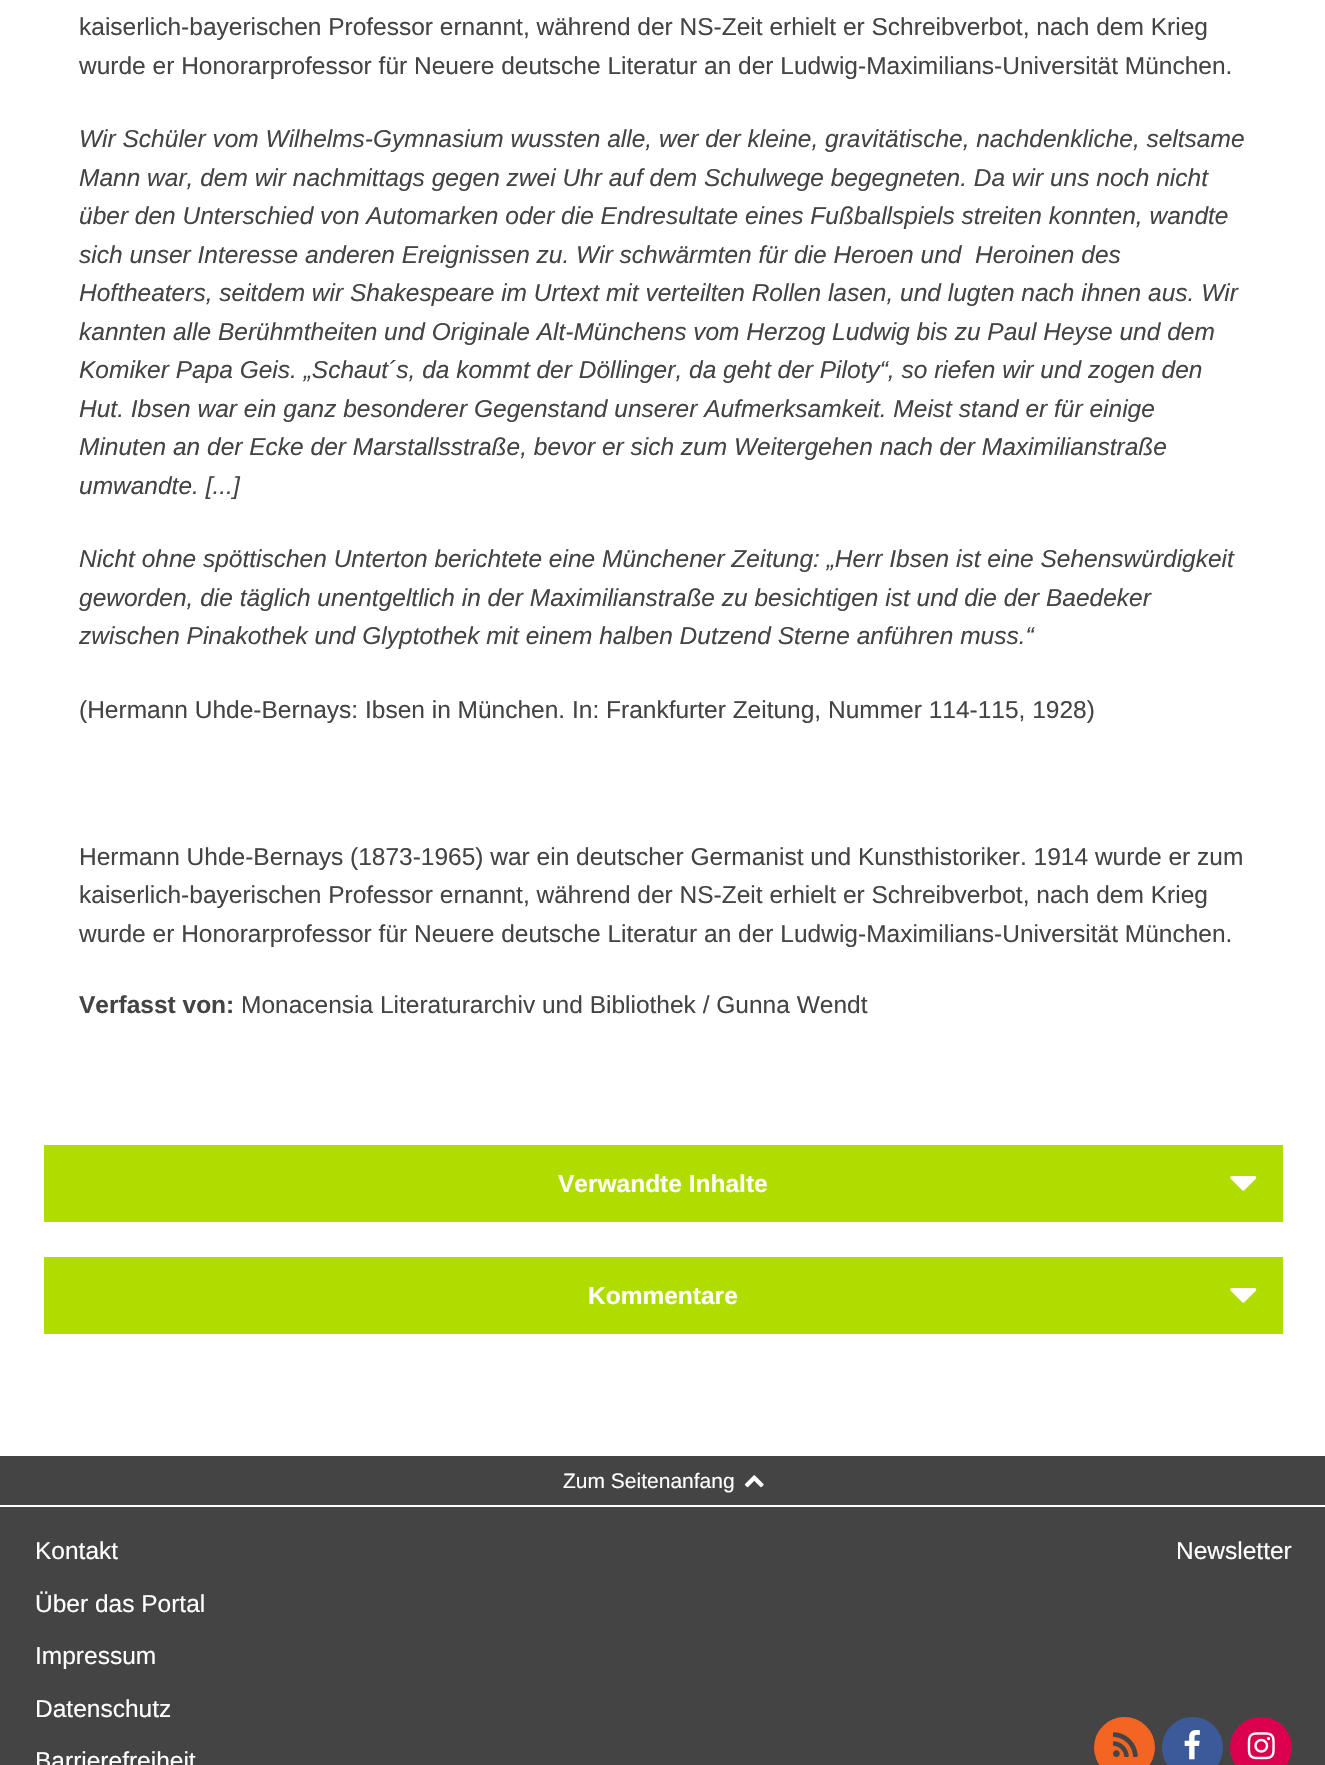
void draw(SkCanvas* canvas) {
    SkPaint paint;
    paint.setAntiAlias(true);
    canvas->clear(0xFFFFFFFF);
    SkFont font1(fontMgr->matchFamilyStyle("Liberation Sans", SkFontStyle::Normal()), 24.5f);
    font1.setSubpixel(true);
    paint.setColor(0xFF444444);
    canvas->drawString("kaiserlich-bayerischen Professor ernannt, während der NS-Zeit erhielt er Schreibverbot, nach dem Krieg", 79, 35, font1, paint);
    canvas->drawString("wurde er Honorarprofessor für Neuere deutsche Literatur an der Ludwig-Maximilians-Universität München.", 79, 74, font1, paint);
    SkFont font2(fontMgr->matchFamilyStyle("Liberation Sans", SkFontStyle::Italic()), 24.5f);
    font2.setSubpixel(true);
    canvas->drawString("Wir Schüler vom Wilhelms-Gymnasium wussten alle, wer der kleine, gravitätische, nachdenkliche, seltsame", 79, 147, font2, paint);
    canvas->drawString("Mann war, dem wir nachmittags gegen zwei Uhr auf dem Schulwege begegneten. Da wir uns noch nicht", 79, 186, font2, paint);
    canvas->drawString("über den Unterschied von Automarken oder die Endresultate eines Fußballspiels streiten konnten, wandte", 79, 224, font2, paint);
    canvas->drawString("sich unser Interesse anderen Ereignissen zu. Wir schwärmten für die Heroen und  Heroinen des", 79, 263, font2, paint);
    canvas->drawString("Hoftheaters, seitdem wir Shakespeare im Urtext mit verteilten Rollen lasen, und lugten nach ihnen aus. Wir", 79, 301, font2, paint);
    canvas->drawString("kannten alle Berühmtheiten und Originale Alt-Münchens vom Herzog Ludwig bis zu Paul Heyse und dem", 79, 340, font2, paint);
    canvas->drawString("Komiker Papa Geis. „Schaut´s, da kommt der Döllinger, da geht der Piloty“, so riefen wir und zogen den", 79, 378, font2, paint);
    canvas->drawString("Hut. Ibsen war ein ganz besonderer Gegenstand unserer Aufmerksamkeit. Meist stand er für einige", 79, 417, font2, paint);
    canvas->drawString("Minuten an der Ecke der Marstallsstraße, bevor er sich zum Weitergehen nach der Maximilianstraße", 79, 455, font2, paint);
    canvas->drawString("umwandte. [...]", 79, 494, font2, paint);
    canvas->drawString("Nicht ohne spöttischen Unterton berichtete eine Münchener Zeitung: „Herr Ibsen ist eine Sehenswürdigkeit", 79, 567, font2, paint);
    canvas->drawString("geworden, die täglich unentgeltlich in der Maximilianstraße zu besichtigen ist und die der Baedeker", 79, 606, font2, paint);
    canvas->drawString("zwischen Pinakothek und Glyptothek mit einem halben Dutzend Sterne anführen muss.“", 79, 644, font2, paint);
    canvas->drawString("(Hermann Uhde-Bernays: Ibsen in München. In: Frankfurter Zeitung, Nummer 114-115, 1928)", 79, 718, font1, paint);
    canvas->drawString("Hermann Uhde-Bernays (1873-1965) war ein deutscher Germanist und Kunsthistoriker. 1914 wurde er zum", 79, 865, font1, paint);
    canvas->drawString("kaiserlich-bayerischen Professor ernannt, während der NS-Zeit erhielt er Schreibverbot, nach dem Krieg", 79, 903, font1, paint);
    canvas->drawString("wurde er Honorarprofessor für Neuere deutsche Literatur an der Ludwig-Maximilians-Universität München.", 79, 942, font1, paint);
    SkFont font3(fontMgr->matchFamilyStyle("Liberation Sans", SkFontStyle::Bold()), 24.5f);
    font3.setSubpixel(true);
    canvas->drawString("Verfasst von:", 79, 1013, font3, paint);
    canvas->drawString("Monacensia Literaturarchiv und Bibliothek / Gunna Wendt", 241, 1013, font1, paint);
    paint.setColor(0xFFAFDD00);
    canvas->drawRect(SkRect::MakeXYWH(44, 1145, 1239, 77), paint);
    paint.setColor(0xFFFFFFFF);
    canvas->drawString("Verwandte Inhalte", 558, 1192, font3, paint);
    canvas->drawImageRect(SkImages::DeferredFromEncodedData(SkData::MakeFromFileName("img1.png")), SkRect::MakeXYWH(1230, 1176, 27, 15), SkSamplingOptions());
    paint.setColor(0xFFAFDD00);
    canvas->drawRect(SkRect::MakeXYWH(44, 1257, 1239, 77), paint);
    paint.setColor(0xFFFFFFFF);
    canvas->drawString("Kommentare", 588, 1304, font3, paint);
    canvas->drawImageRect(SkImages::DeferredFromEncodedData(SkData::MakeFromFileName("img1.png")), SkRect::MakeXYWH(1230, 1288, 27, 15), SkSamplingOptions());
    paint.setColor(0xFF444444);
    canvas->drawRect(SkRect::MakeXYWH(0, 1456, 1325, 49), paint);
    SkFont font4(fontMgr->matchFamilyStyle("Liberation Sans", SkFontStyle::Normal()), 21);
    font4.setSubpixel(true);
    paint.setColor(0xFFFFFFFF);
    canvas->drawString("Zum Seitenanfang", 563, 1488, font4, paint);
    canvas->drawImageRect(SkImages::DeferredFromEncodedData(SkData::MakeFromFileName("img2.png")), SkRect::MakeXYWH(744, 1475, 20, 13), SkSamplingOptions());
    paint.setColor(0xFF444444);
    canvas->drawRect(SkRect::MakeXYWH(0, 1507, 1325, 258), paint);
    paint.setColor(0xFFFFFFFF);
    canvas->drawString("Kontakt", 35, 1559, font1, paint);
    canvas->drawString("Über das Portal", 35, 1612, font1, paint);
    canvas->drawString("Impressum", 35, 1664, font1, paint);
    canvas->drawString("Datenschutz", 35, 1717, font1, paint);
    canvas->drawString("Barrierefreiheit", 35, 1769, font1, paint);
    canvas->drawString("Newsletter", 1176, 1559, font1, paint);
    paint.setColor(0xFFF26522);
    canvas->drawCircle(1124.5f, 1747.5f, 30.5f, paint);
    canvas->drawImageRect(SkImages::DeferredFromEncodedData(SkData::MakeFromFileName("img3.png")), SkRect::MakeXYWH(1113, 1732, 25, 25), SkSamplingOptions());
    paint.setColor(0xFF3C5A99);
    canvas->drawCircle(1192.5f, 1747.5f, 30.5f, paint);
    canvas->drawImageRect(SkImages::DeferredFromEncodedData(SkData::MakeFromFileName("img4.png")), SkRect::MakeXYWH(1184, 1730, 16, 30), SkSamplingOptions());
    paint.setColor(0xFFDB004D);
    canvas->drawRoundRect(SkRect::MakeXYWH(1230, 1717, 62, 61), 30.5f, 30.5f, paint);
    canvas->drawImageRect(SkImages::DeferredFromEncodedData(SkData::MakeFromFileName("img5.png")), SkRect::MakeXYWH(1247, 1732, 28, 28), SkSamplingOptions());
}
